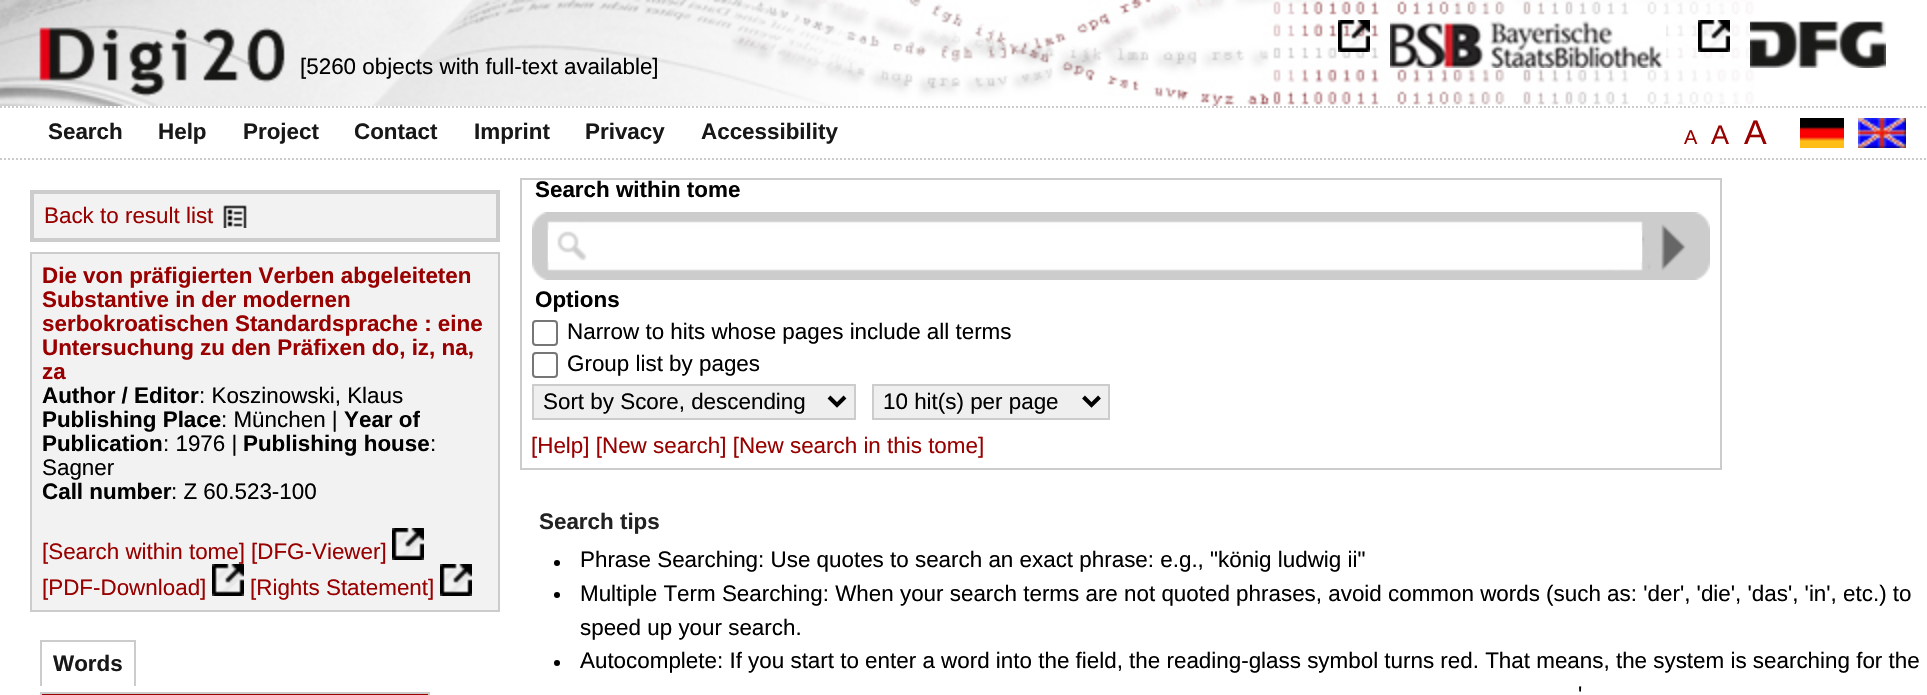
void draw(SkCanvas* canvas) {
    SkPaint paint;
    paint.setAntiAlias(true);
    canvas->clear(0xFFFFFFFF);
    canvas->drawImageRect(SkImages::DeferredFromEncodedData(SkData::MakeFromFileName("img1.png")), SkRect::MakeXYWH(0, 0, 1754, 106), SkSamplingOptions());
    SkFont font1(fontMgr->matchFamilyStyle("Liberation Sans", SkFontStyle::Normal()), 22.4f);
    font1.setSubpixel(true);
    paint.setColor(0xFF000000);
    canvas->drawString("[5260 objects with full-text available]", 300, 74, font1, paint);
    canvas->drawImageRect(SkImages::DeferredFromEncodedData(SkData::MakeFromFileName("img2.png")), SkRect::MakeXYWH(1390, 20, 276, 48), SkSamplingOptions());
    canvas->drawImageRect(SkImages::DeferredFromEncodedData(SkData::MakeFromFileName("img3.png")), SkRect::MakeXYWH(1338, 20, 32, 32), SkSamplingOptions());
    canvas->drawImageRect(SkImages::DeferredFromEncodedData(SkData::MakeFromFileName("img4.png")), SkRect::MakeXYWH(1750, 21, 136, 47), SkSamplingOptions());
    canvas->drawImageRect(SkImages::DeferredFromEncodedData(SkData::MakeFromFileName("img5.png")), SkRect::MakeXYWH(1698, 20, 32, 32), SkSamplingOptions());
    paint.setStyle(SkPaint::kStroke_Style);
    paint.setStrokeWidth(2);
    paint.setColor(0xFFCCCCCC);
    paint.setPathEffect(SkDashPathEffect::Make({{2, 2}}, 0));
    canvas->drawPath(SkPathBuilder().moveTo(0, 107).lineTo(1926, 107).detach(), paint);
    paint.setPathEffect(nullptr);
    paint.setPathEffect(SkDashPathEffect::Make({{2, 2}}, 0));
    canvas->drawPath(SkPathBuilder().moveTo(0, 159).lineTo(1926, 159).detach(), paint);
    paint.setPathEffect(nullptr);
    SkFont font2(fontMgr->matchFamilyStyle("Liberation Sans", SkFontStyle::Bold()), 22.4f);
    font2.setSubpixel(true);
    paint.setStyle(SkPaint::kFill_Style);
    paint.setColor(0xFF181818);
    canvas->drawString("Search", 48, 139, font2, paint);
    canvas->drawString("Help", 158, 139, font2, paint);
    canvas->drawString("Project", 243, 139, font2, paint);
    canvas->drawString("Contact", 354, 139, font2, paint);
    canvas->drawString("Imprint", 474, 139, font2, paint);
    canvas->drawString("Privacy", 585, 139, font2, paint);
    canvas->drawString("Accessibility", 701, 139, font2, paint);
    SkFont font3(fontMgr->matchFamilyStyle("Liberation Sans", SkFontStyle::Normal()), 20);
    font3.setSubpixel(true);
    paint.setColor(0xFF990000);
    canvas->drawString("A", 1684, 144, font3, paint);
    SkFont font4(fontMgr->matchFamilyStyle("Liberation Sans", SkFontStyle::Normal()), 27);
    font4.setSubpixel(true);
    canvas->drawString("A", 1711, 144, font4, paint);
    SkFont font5(fontMgr->matchFamilyStyle("Liberation Sans", SkFontStyle::Normal()), 34);
    font5.setSubpixel(true);
    canvas->drawString("A", 1744, 144, font5, paint);
    canvas->drawImageRect(SkImages::DeferredFromEncodedData(SkData::MakeFromFileName("img6.png")), SkRect::MakeXYWH(1800, 118, 44, 30), SkSamplingOptions());
    canvas->drawImageRect(SkImages::DeferredFromEncodedData(SkData::MakeFromFileName("img7.png")), SkRect::MakeXYWH(1858, 118, 48, 30), SkSamplingOptions());
    paint.setColor(0xFFF2F2F2);
    canvas->drawRect(SkRect::MakeXYWH(32, 192, 466, 48), paint);
    paint.setStyle(SkPaint::kStroke_Style);
    paint.setStrokeWidth(4);
    paint.setColor(0xFFCCCCCC);
    canvas->drawRect(SkRect::MakeXYWH(32, 192, 466, 48), paint);
    paint.setStyle(SkPaint::kFill_Style);
    paint.setColor(0xFF990000);
    canvas->drawString("Back to result list", 44, 223, font1, paint);
    canvas->drawImageRect(SkImages::DeferredFromEncodedData(SkData::MakeFromFileName("img8.png")), SkRect::MakeXYWH(223, 205, 24, 23), SkSamplingOptions());
    paint.setColor(0xFFF2F2F2);
    canvas->drawRect(SkRect::MakeXYWH(31, 253, 468, 358), paint);
    paint.setStyle(SkPaint::kStroke_Style);
    paint.setStrokeWidth(2);
    paint.setColor(0xFFCCCCCC);
    canvas->drawRect(SkRect::MakeXYWH(31, 253, 468, 358), paint);
    paint.setStyle(SkPaint::kFill_Style);
    paint.setColor(0xFF990000);
    canvas->drawString("Die von präfigierten Verben abgeleiteten", 42, 283, font2, paint);
    canvas->drawString("Substantive in der modernen", 42, 307, font2, paint);
    canvas->drawString("serbokroatischen Standardsprache : eine", 42, 331, font2, paint);
    canvas->drawString("Untersuchung zu den Präfixen do, iz, na,", 42, 355, font2, paint);
    canvas->drawString("za", 42, 379, font2, paint);
    paint.setColor(0xFF000000);
    canvas->drawString("Author / Editor", 42, 403, font2, paint);
    canvas->drawString(": Koszinowski, Klaus", 199, 403, font1, paint);
    canvas->drawString("Publishing Place", 42, 427, font2, paint);
    canvas->drawString(": München |", 221, 427, font1, paint);
    canvas->drawString("Year of", 344, 427, font2, paint);
    canvas->drawString("Publication", 42, 451, font2, paint);
    canvas->drawString(": 1976 |", 163, 451, font1, paint);
    canvas->drawString("Publishing house", 243, 451, font2, paint);
    canvas->drawString(":", 430, 451, font1, paint);
    canvas->drawString("Sagner", 42, 475, font1, paint);
    canvas->drawString("Call number", 42, 499, font2, paint);
    canvas->drawString(": Z 60.523-100", 171, 499, font1, paint);
    paint.setColor(0xFF990000);
    canvas->drawString("[Search within tome]", 42, 559, font1, paint);
    canvas->drawString("[DFG-Viewer]", 251, 559, font1, paint);
    canvas->drawImageRect(SkImages::DeferredFromEncodedData(SkData::MakeFromFileName("img9.png")), SkRect::MakeXYWH(392, 528, 32, 32), SkSamplingOptions());
    canvas->drawString("[PDF-Download]", 42, 595, font1, paint);
    canvas->drawImageRect(SkImages::DeferredFromEncodedData(SkData::MakeFromFileName("img9.png")), SkRect::MakeXYWH(212, 564, 32, 32), SkSamplingOptions());
    canvas->drawString("[Rights Statement]", 250, 595, font1, paint);
    canvas->drawImageRect(SkImages::DeferredFromEncodedData(SkData::MakeFromFileName("img9.png")), SkRect::MakeXYWH(440, 564, 32, 32), SkSamplingOptions());
    paint.setColor(0xFF181818);
    canvas->drawString("Words", 53, 671, font2, paint);
    paint.setColor(0xFFCCCCCC);
    canvas->drawRect(SkRect::MakeXYWH(40, 640, 96, 2), paint);
    canvas->drawRect(SkRect::MakeXYWH(134, 640, 2, 46), paint);
    canvas->drawRect(SkRect::MakeXYWH(40, 640, 2, 46), paint);
    canvas->drawRect(SkRect::MakeXYWH(40, 692, 390, 2), paint);
    paint.setColor(0xFF990000);
    canvas->drawRect(SkRect::MakeXYWH(40, 694, 390, 1), paint);
    paint.setColor(0xFFCCCCCC);
    canvas->drawRect(SkRect::MakeXYWH(40, 692, 2, 3), paint);
    canvas->drawRect(SkRect::MakeXYWH(428, 692, 2, 3), paint);
    paint.setStyle(SkPaint::kStroke_Style);
    canvas->drawRect(SkRect::MakeXYWH(521, 179, 1200, 290), paint);
    paint.setStyle(SkPaint::kFill_Style);
    paint.setColor(0xFF000000);
    canvas->drawString("Search within tome", 535, 197, font2, paint);
    canvas->drawImageRect(SkImages::DeferredFromEncodedData(SkData::MakeFromFileName("img10.png")), SkRect::MakeXYWH(532, 212, 1178, 68), SkSamplingOptions());
    paint.setColor(0xFFFFFFFF);
    canvas->drawRect(SkRect::MakeXYWH(548, 230, 1094, 32), paint);
    canvas->drawImageRect(SkImages::DeferredFromEncodedData(SkData::MakeFromFileName("img11.png")), SkRect::MakeXYWH(557, 231, 30, 30), SkSamplingOptions());
    canvas->drawImageRect(SkImages::DeferredFromEncodedData(SkData::MakeFromFileName("img12.png")), SkRect::MakeXYWH(1642, 224, 44, 47), SkSamplingOptions());
    paint.setColor(0xFF000000);
    canvas->drawString("Options", 535, 307, font2, paint);
    paint.setStyle(SkPaint::kStroke_Style);
    paint.setColor(0xFF767676);
    canvas->drawRoundRect(SkRect::MakeXYWH(533, 321, 24, 24), 3, 3, paint);
    paint.setStyle(SkPaint::kFill_Style);
    paint.setColor(0xFF000000);
    canvas->drawString("Narrow to hits whose pages include all terms", 567, 339, font1, paint);
    paint.setStyle(SkPaint::kStroke_Style);
    paint.setColor(0xFF767676);
    canvas->drawRoundRect(SkRect::MakeXYWH(533, 353, 24, 24), 3, 3, paint);
    paint.setStyle(SkPaint::kFill_Style);
    paint.setColor(0xFF000000);
    canvas->drawString("Group list by pages", 567, 371, font1, paint);
    paint.setColor(0xFFEFEFEF);
    canvas->drawRect(SkRect::MakeXYWH(533, 385, 322, 34), paint);
    paint.setStyle(SkPaint::kStroke_Style);
    paint.setColor(0xFFCCCCCC);
    canvas->drawRect(SkRect::MakeXYWH(533, 385, 322, 34), paint);
    paint.setStrokeWidth(4);
    paint.setColor(0xFF000000);
    canvas->drawPath(SkPathBuilder().moveTo(829, 397).lineTo(837, 405).lineTo(845, 397).detach(), paint);
    paint.setStyle(SkPaint::kFill_Style);
    canvas->drawString("Sort by Score, descending", 543, 409, font1, paint);
    paint.setColor(0xFFEFEFEF);
    canvas->drawRect(SkRect::MakeXYWH(873, 385, 236, 34), paint);
    paint.setStyle(SkPaint::kStroke_Style);
    paint.setStrokeWidth(2);
    paint.setColor(0xFFCCCCCC);
    canvas->drawRect(SkRect::MakeXYWH(873, 385, 236, 34), paint);
    paint.setStrokeWidth(4);
    paint.setColor(0xFF000000);
    canvas->drawPath(SkPathBuilder().moveTo(1083.5f, 397).lineTo(1091.5f, 405).lineTo(1099.5f, 397).detach(), paint);
    paint.setStyle(SkPaint::kFill_Style);
    canvas->drawString("10 hit(s) per page", 883, 409, font1, paint);
    paint.setColor(0xFF990000);
    canvas->drawString("[Help] [New search] [New search in this tome]", 531, 453, font1, paint);
    paint.setColor(0xFF222222);
    canvas->drawString("Search tips", 539, 529, font2, paint);
    paint.setColor(0xFF000000);
    canvas->drawCircle(557, 563, 3, paint);
    canvas->drawString("Phrase Searching: Use quotes to search an exact phrase: e.g., \"könig ludwig ii\"", 580, 567, font1, paint);
    canvas->drawCircle(557, 595, 3, paint);
    canvas->drawString("Multiple Term Searching: When your search terms are not quoted phrases, avoid common words (such as: 'der', 'die', 'das', 'in', etc.) to", 580, 601, font1, paint);
    canvas->drawString("speed up your search.", 580, 635, font1, paint);
    canvas->drawCircle(557, 663, 3, paint);
    canvas->drawString("Autocomplete: If you start to enter a word into the field, the reading-glass symbol turns red. That means, the system is searching for the", 580, 668, font1, paint);
    canvas->drawString("'", 1578, 702, font1, paint);
}
